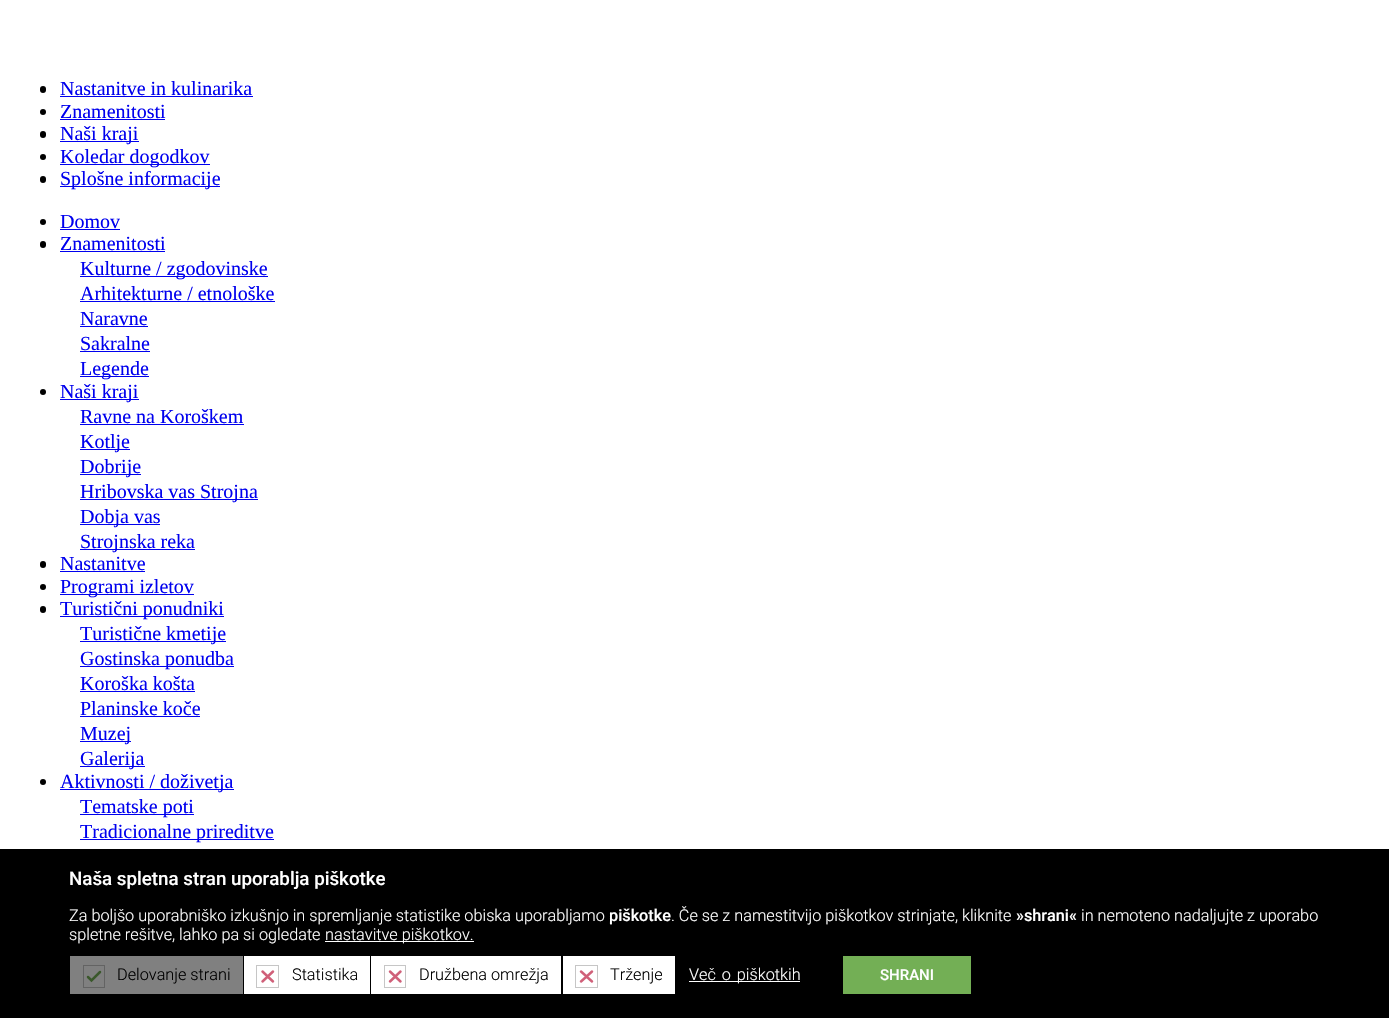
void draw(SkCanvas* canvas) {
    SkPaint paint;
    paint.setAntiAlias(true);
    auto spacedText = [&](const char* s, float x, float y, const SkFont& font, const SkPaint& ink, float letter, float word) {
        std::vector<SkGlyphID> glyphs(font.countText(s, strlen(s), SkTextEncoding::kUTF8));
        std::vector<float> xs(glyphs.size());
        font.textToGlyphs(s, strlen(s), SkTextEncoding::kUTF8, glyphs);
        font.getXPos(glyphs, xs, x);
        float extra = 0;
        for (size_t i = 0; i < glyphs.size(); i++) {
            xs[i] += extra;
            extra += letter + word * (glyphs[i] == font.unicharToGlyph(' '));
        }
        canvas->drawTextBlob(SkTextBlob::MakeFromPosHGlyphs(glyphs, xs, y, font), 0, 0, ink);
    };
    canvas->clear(0xFFFFFFFF);
    paint.setColor(0xFF000000);
    canvas->drawRoundRect(SkRect::MakeXYWH(40, 86, 6, 7), 3, 3, paint);
    SkFont font1(fontMgr->matchFamilyStyle("Liberation Serif", SkFontStyle::Normal()), 20);
    font1.setSubpixel(true);
    paint.setColor(0xFF0000EE);
    canvas->drawString("Nastanitve in kulinarika", 60, 95, font1, paint);
    canvas->drawRect(SkRect::MakeXYWH(60, 96, 193, 1), paint);
    paint.setColor(0xFF000000);
    canvas->drawCircle(43, 112, 3, paint);
    paint.setColor(0xFF0000EE);
    canvas->drawString("Znamenitosti", 60, 118, font1, paint);
    canvas->drawRect(SkRect::MakeXYWH(60, 119, 105, 1), paint);
    paint.setColor(0xFF000000);
    canvas->drawRoundRect(SkRect::MakeXYWH(40, 131, 6, 7), 3, 3, paint);
    paint.setColor(0xFF0000EE);
    canvas->drawRect(SkRect::MakeXYWH(60, 141, 79, 1), paint);
    canvas->drawString("Naši kraji", 60, 140, font1, paint);
    paint.setColor(0xFF000000);
    canvas->drawCircle(43, 157, 3, paint);
    paint.setColor(0xFF0000EE);
    canvas->drawRect(SkRect::MakeXYWH(60, 164, 150, 1), paint);
    canvas->drawString("Koledar dogodkov", 60, 163, font1, paint);
    paint.setColor(0xFF000000);
    canvas->drawRoundRect(SkRect::MakeXYWH(40, 176, 6, 7), 3, 3, paint);
    paint.setColor(0xFF0000EE);
    canvas->drawRect(SkRect::MakeXYWH(60, 186, 160, 1), paint);
    canvas->drawString("Splošne informacije", 60, 185, font1, paint);
    paint.setColor(0xFF000000);
    canvas->drawCircle(43, 222, 3, paint);
    paint.setColor(0xFF0000EE);
    canvas->drawString("Domov", 60, 228, font1, paint);
    canvas->drawRect(SkRect::MakeXYWH(60, 229, 60, 1), paint);
    paint.setColor(0xFF000000);
    canvas->drawRoundRect(SkRect::MakeXYWH(40, 241, 6, 7), 3, 3, paint);
    paint.setColor(0xFF0000EE);
    canvas->drawString("Znamenitosti", 60, 250, font1, paint);
    canvas->drawRect(SkRect::MakeXYWH(60, 251, 105, 1), paint);
    canvas->drawRect(SkRect::MakeXYWH(80, 276, 188, 1), paint);
    canvas->drawString("Kulturne / zgodovinske", 80, 275, font1, paint);
    canvas->drawString("Arhitekturne / etnološke", 80, 300, font1, paint);
    canvas->drawRect(SkRect::MakeXYWH(80, 301, 195, 1), paint);
    canvas->drawString("Naravne", 80, 325, font1, paint);
    canvas->drawRect(SkRect::MakeXYWH(80, 326, 68, 1), paint);
    canvas->drawString("Sakralne", 80, 350, font1, paint);
    canvas->drawRect(SkRect::MakeXYWH(80, 351, 70, 1), paint);
    canvas->drawRect(SkRect::MakeXYWH(80, 376, 69, 1), paint);
    canvas->drawString("Legende", 80, 375, font1, paint);
    paint.setColor(0xFF000000);
    canvas->drawCircle(43, 392, 3, paint);
    paint.setColor(0xFF0000EE);
    canvas->drawRect(SkRect::MakeXYWH(60, 399, 79, 1), paint);
    canvas->drawString("Naši kraji", 60, 398, font1, paint);
    canvas->drawString("Ravne na Koroškem", 80, 423, font1, paint);
    canvas->drawRect(SkRect::MakeXYWH(80, 424, 164, 1), paint);
    canvas->drawRect(SkRect::MakeXYWH(80, 449, 50, 1), paint);
    canvas->drawString("Kotlje", 80, 448, font1, paint);
    canvas->drawRect(SkRect::MakeXYWH(80, 474, 61, 1), paint);
    canvas->drawString("Dobrije", 80, 473, font1, paint);
    canvas->drawRect(SkRect::MakeXYWH(80, 499, 178, 1), paint);
    canvas->drawString("Hribovska vas Strojna", 80, 498, font1, paint);
    canvas->drawRect(SkRect::MakeXYWH(80, 524, 80, 1), paint);
    canvas->drawString("Dobja vas", 80, 523, font1, paint);
    canvas->drawRect(SkRect::MakeXYWH(80, 549, 115, 1), paint);
    canvas->drawString("Strojnska reka", 80, 548, font1, paint);
    paint.setColor(0xFF000000);
    canvas->drawRoundRect(SkRect::MakeXYWH(40, 561, 6, 7), 3, 3, paint);
    paint.setColor(0xFF0000EE);
    canvas->drawString("Nastanitve", 60, 570, font1, paint);
    canvas->drawRect(SkRect::MakeXYWH(60, 571, 85, 1), paint);
    paint.setColor(0xFF000000);
    canvas->drawCircle(43, 587, 3, paint);
    paint.setColor(0xFF0000EE);
    canvas->drawRect(SkRect::MakeXYWH(60, 594, 134, 1), paint);
    canvas->drawString("Programi izletov", 60, 593, font1, paint);
    paint.setColor(0xFF000000);
    canvas->drawRoundRect(SkRect::MakeXYWH(40, 606, 6, 7), 3, 3, paint);
    paint.setColor(0xFF0000EE);
    canvas->drawRect(SkRect::MakeXYWH(60, 616, 164, 1), paint);
    canvas->drawString("Turistični ponudniki", 60, 615, font1, paint);
    canvas->drawRect(SkRect::MakeXYWH(80, 641, 146, 1), paint);
    canvas->drawString("Turistične kmetije", 80, 640, font1, paint);
    canvas->drawRect(SkRect::MakeXYWH(80, 666, 154, 1), paint);
    canvas->drawString("Gostinska ponudba", 80, 665, font1, paint);
    canvas->drawString("Koroška košta", 80, 690, font1, paint);
    canvas->drawRect(SkRect::MakeXYWH(80, 691, 115, 1), paint);
    canvas->drawString("Planinske koče", 80, 715, font1, paint);
    canvas->drawRect(SkRect::MakeXYWH(80, 716, 120, 1), paint);
    canvas->drawRect(SkRect::MakeXYWH(80, 741, 51, 1), paint);
    canvas->drawString("Muzej", 80, 740, font1, paint);
    canvas->drawRect(SkRect::MakeXYWH(80, 766, 65, 1), paint);
    canvas->drawString("Galerija", 80, 765, font1, paint);
    paint.setColor(0xFF000000);
    canvas->drawCircle(43, 782, 3, paint);
    paint.setColor(0xFF0000EE);
    canvas->drawRect(SkRect::MakeXYWH(60, 789, 174, 1), paint);
    canvas->drawString("Aktivnosti / doživetja", 60, 788, font1, paint);
    canvas->drawRect(SkRect::MakeXYWH(80, 814, 114, 1), paint);
    canvas->drawString("Tematske poti", 80, 813, font1, paint);
    canvas->drawRect(SkRect::MakeXYWH(80, 839, 194, 1), paint);
    canvas->drawString("Tradicionalne prireditve", 80, 838, font1, paint);
    paint.setColor(0xFF000000);
    canvas->drawRect(SkRect::MakeXYWH(0, 849, 1389, 169), paint);
    SkFont font2(fontMgr->matchFamilyStyle("Roboto", SkFontStyle(500, SkFontStyle::kNormal_Width, SkFontStyle::kUpright_Slant)), 18.75f);
    font2.setSubpixel(true);
    paint.setColor(0xFFFFFFFF);
    canvas->drawString("Naša spletna stran uporablja piškotke", 69, 885, font2, paint);
    SkFont font3(fontMgr->matchFamilyStyle("Roboto", SkFontStyle(300, SkFontStyle::kNormal_Width, SkFontStyle::kUpright_Slant)), 16.25f);
    font3.setSubpixel(true);
    canvas->drawString("Za boljšo uporabniško izkušnjo in spremljanje statistike obiska uporabljamo", 69, 921, font3, paint);
    SkFont font4(fontMgr->matchFamilyStyle("Roboto", SkFontStyle(500, SkFontStyle::kNormal_Width, SkFontStyle::kUpright_Slant)), 16.25f);
    font4.setSubpixel(true);
    canvas->drawString("piškotke", 609, 921, font4, paint);
    canvas->drawString(". Če se z namestitvijo piškotkov strinjate, kliknite", 671, 921, font3, paint);
    canvas->drawString("»shrani«", 1016, 921, font4, paint);
    canvas->drawString("in nemoteno nadaljujte z uporabo", 1081, 921, font3, paint);
    canvas->drawString("spletne rešitve, lahko pa si ogledate", 69, 940, font3, paint);
    canvas->drawRect(SkRect::MakeXYWH(325, 941, 149, 1), paint);
    canvas->drawString("nastavitve piškotkov.", 325, 940, font3, paint);
    paint.setColor(0xFF808080);
    canvas->drawRect(SkRect::MakeXYWH(70, 956, 173, 38), paint);
    paint.setStyle(SkPaint::kStroke_Style);
    paint.setStrokeWidth(2.5f);
    paint.setStrokeCap(SkPaint::kRound_Cap);
    paint.setColor(0xFF3A582B);
    canvas->drawPath(SkPathBuilder().moveTo(100, 972).lineTo(91.5f, 980.5f).lineTo(88, 977).detach(), paint);
    paint.setStrokeWidth(1);
    paint.setStrokeCap(SkPaint::kButt_Cap);
    paint.setColor(0xFF636363);
    canvas->drawRect(SkRect::MakeXYWH(83.5f, 965.5f, 21, 22), paint);
    paint.setStyle(SkPaint::kFill_Style);
    paint.setColor(0xFF000000);
    canvas->drawString("Delovanje strani", 117, 980, font3, paint);
    paint.setColor(0xFFFFFFFF);
    canvas->drawRect(SkRect::MakeXYWH(244, 956, 126, 38), paint);
    paint.setStyle(SkPaint::kStroke_Style);
    paint.setStrokeWidth(2.5f);
    paint.setStrokeCap(SkPaint::kRound_Cap);
    paint.setColor(0xFFD06079);
    canvas->drawPath(SkPathBuilder().moveTo(262.5f, 971.5f).lineTo(273, 981.5f).moveTo(273, 971.5f).lineTo(262.5f, 981.5f).detach(), paint);
    paint.setStrokeWidth(1);
    paint.setStrokeCap(SkPaint::kButt_Cap);
    paint.setColor(0xFFC6C6C6);
    canvas->drawRect(SkRect::MakeXYWH(256.5f, 965.5f, 22, 22), paint);
    paint.setStyle(SkPaint::kFill_Style);
    paint.setColor(0xFF000000);
    canvas->drawString("Statistika", 292, 980, font3, paint);
    paint.setColor(0xFFFFFFFF);
    canvas->drawRect(SkRect::MakeXYWH(371, 956, 190, 38), paint);
    paint.setStyle(SkPaint::kStroke_Style);
    paint.setStrokeWidth(2.5f);
    paint.setStrokeCap(SkPaint::kRound_Cap);
    paint.setColor(0xFFD06079);
    canvas->drawPath(SkPathBuilder().moveTo(390, 971.5f).lineTo(400.5f, 981.5f).moveTo(400.5f, 971.5f).lineTo(390, 981.5f).detach(), paint);
    paint.setStrokeWidth(1);
    paint.setStrokeCap(SkPaint::kButt_Cap);
    paint.setColor(0xFFC6C6C6);
    canvas->drawRect(SkRect::MakeXYWH(384.5f, 965.5f, 21, 22), paint);
    paint.setStyle(SkPaint::kFill_Style);
    paint.setColor(0xFF000000);
    canvas->drawString("Družbena omrežja", 419, 980, font3, paint);
    paint.setColor(0xFFFFFFFF);
    canvas->drawRect(SkRect::MakeXYWH(563, 956, 112, 38), paint);
    paint.setStyle(SkPaint::kStroke_Style);
    paint.setStrokeWidth(2.5f);
    paint.setStrokeCap(SkPaint::kRound_Cap);
    paint.setColor(0xFFD06079);
    canvas->drawPath(SkPathBuilder().moveTo(581, 971.5f).lineTo(592, 981.5f).moveTo(592, 971.5f).lineTo(581, 981.5f).detach(), paint);
    paint.setStrokeWidth(1);
    paint.setStrokeCap(SkPaint::kButt_Cap);
    paint.setColor(0xFFC6C6C6);
    canvas->drawRect(SkRect::MakeXYWH(575.5f, 965.5f, 22, 22), paint);
    paint.setStyle(SkPaint::kFill_Style);
    paint.setColor(0xFF000000);
    canvas->drawString("Trženje", 610, 980, font3, paint);
    paint.setColor(0xFFFFFFFF);
    canvas->drawRect(SkRect::MakeXYWH(689, 981, 111, 1), paint);
    spacedText("Več o piškotkih", 689, 980, font3, paint, 0, 2);
    paint.setColor(0xFF73AF55);
    canvas->drawRect(SkRect::MakeXYWH(843, 956, 128, 38), paint);
    SkFont font5(fontMgr->matchFamilyStyle("Roboto", SkFontStyle(500, SkFontStyle::kNormal_Width, SkFontStyle::kUpright_Slant)), 15);
    font5.setSubpixel(true);
    paint.setColor(0xFFFFFFFF);
    canvas->drawString("SHRANI", 880, 980, font5, paint);
}
